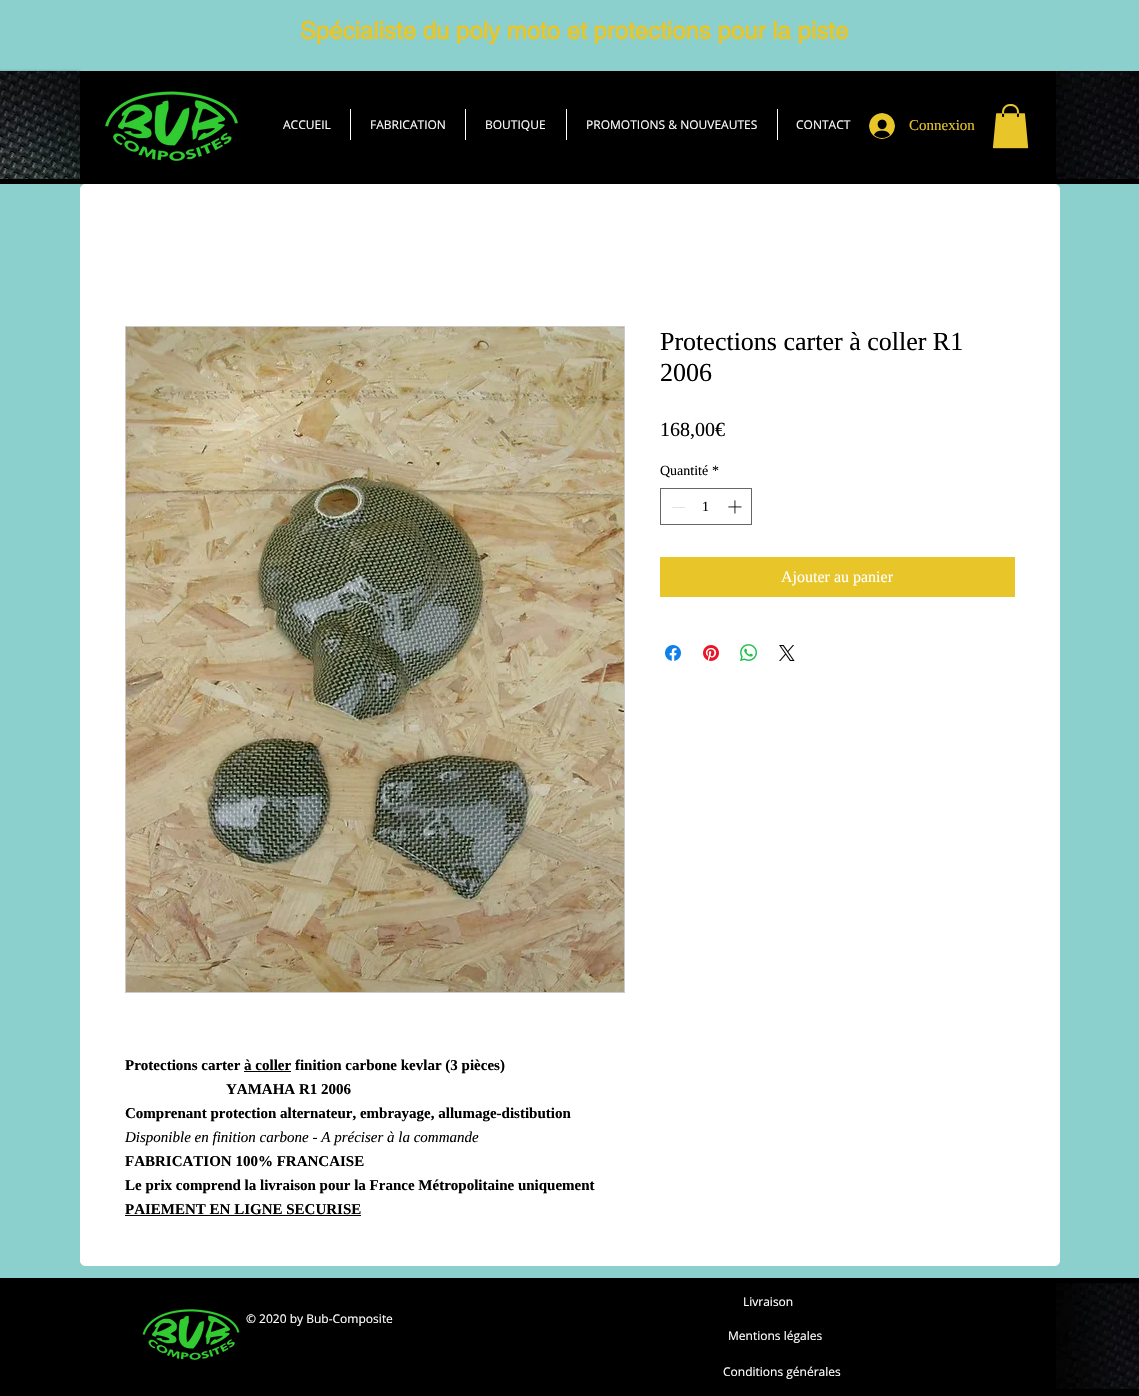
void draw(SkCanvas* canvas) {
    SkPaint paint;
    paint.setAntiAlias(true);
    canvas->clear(0xFF8BD0CD);
    SkFont font1(fontMgr->matchFamilyStyle("helvetica", SkFontStyle::Bold()), 24);
    font1.setSubpixel(true);
    paint.setColor(0xFFE8C529);
    canvas->drawString("Spécialiste du poly moto et protections pour la piste", 300, 39, font1, paint);
    paint.setColor(0xFF000000);
    canvas->drawRect(SkRect::MakeXYWH(0, 71, 1139, 113), paint);
    paint.setColor(0x80000000);
    paint.setMaskFilter(SkMaskFilter::MakeBlur(kNormal_SkBlurStyle, 1.5f));
    canvas->drawRect(SkRect::MakeXYWH(-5, 72, 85, 108), paint);
    paint.setMaskFilter(nullptr);
    canvas->drawImageRect(SkImages::DeferredFromEncodedData(SkData::MakeFromFileName("img1.png")), SkRect::MakeXYWH(0, 71, 80, 108), SkSamplingOptions());
    canvas->drawImageRect(SkImages::DeferredFromEncodedData(SkData::MakeFromFileName("img2.png")), SkRect::MakeXYWH(105, 91, 133, 70), SkSamplingOptions());
    SkFont font2(fontMgr->matchFamilyStyle("Open Sans", SkFontStyle::Normal()), 12);
    font2.setSubpixel(true);
    paint.setColor(0xFFFFFFFF);
    canvas->drawString("ACCUEIL", 283, 129, font2, paint);
    canvas->drawRect(SkRect::MakeXYWH(350, 109, 1, 31), paint);
    canvas->drawString("FABRICATION", 370, 129, font2, paint);
    canvas->drawRect(SkRect::MakeXYWH(465, 109, 1, 31), paint);
    canvas->drawString("BOUTIQUE", 485, 129, font2, paint);
    canvas->drawRect(SkRect::MakeXYWH(566, 109, 1, 31), paint);
    canvas->drawString("PROMOTIONS & NOUVEAUTES", 586, 129, font2, paint);
    canvas->drawRect(SkRect::MakeXYWH(777, 109, 1, 31), paint);
    canvas->drawString("CONTACT", 796, 129, font2, paint);
    canvas->drawImageRect(SkImages::DeferredFromEncodedData(SkData::MakeFromFileName("img3.png")), SkRect::MakeXYWH(869, 113, 26, 26), SkSamplingOptions());
    SkFont font3(fontMgr->matchFamilyStyle("Liberation Serif", SkFontStyle::Normal()), 15);
    font3.setSubpixel(true);
    paint.setColor(0xFFE8C529);
    canvas->drawString("Connexion", 909, 130, font3, paint);
    canvas->drawImageRect(SkImages::DeferredFromEncodedData(SkData::MakeFromFileName("img4.png")), SkRect::MakeXYWH(992, 104, 37, 45), SkSamplingOptions());
    canvas->drawImageRect(SkImages::DeferredFromEncodedData(SkData::MakeFromFileName("img5.png")), SkRect::MakeXYWH(1056, 71, 83, 108), SkSamplingOptions());
    paint.setColor(0xFFFFFFFF);
    canvas->drawRoundRect(SkRect::MakeXYWH(80.5f, 184.5f, 979, 1081), 4.5f, 4.5f, paint);
    paint.setStyle(SkPaint::kStroke_Style);
    paint.setStrokeWidth(1);
    canvas->drawRoundRect(SkRect::MakeXYWH(80.5f, 184.5f, 979, 1081), 4.5f, 4.5f, paint);
    SkFont font4(fontMgr->matchFamilyStyle("Liberation Serif", SkFontStyle::Normal()), 26);
    font4.setSubpixel(true);
    paint.setStyle(SkPaint::kFill_Style);
    paint.setColor(0xFF000000);
    canvas->drawString("Protections carter à coller R1", 660, 350, font4, paint);
    canvas->drawString("2006", 660, 381, font4, paint);
    SkFont font5(fontMgr->matchFamilyStyle("Liberation Serif", SkFontStyle::Normal()), 20);
    font5.setSubpixel(true);
    canvas->drawString("168,00€", 660, 436, font5, paint);
    SkFont font6(fontMgr->matchFamilyStyle("Liberation Serif", SkFontStyle::Normal()), 14);
    font6.setSubpixel(true);
    canvas->drawString("Quantité", 660, 475, font6, paint);
    canvas->drawString("*", 712, 475, font6, paint);
    paint.setStyle(SkPaint::kStroke_Style);
    paint.setColor(0xFF666666);
    canvas->drawRect(SkRect::MakeXYWH(660.5f, 488.5f, 91, 36), paint);
    paint.setStyle(SkPaint::kFill_Style);
    paint.setColor(0xFFE3E3E3);
    canvas->drawRect(SkRect::MakeXYWH(672, 507, 13, 1), paint);
    paint.setColor(0xFF000000);
    canvas->drawString("1", 702, 511, font6, paint);
    canvas->drawImageRect(SkImages::DeferredFromEncodedData(SkData::MakeFromFileName("img6.png")), SkRect::MakeXYWH(728, 500, 14, 14), SkSamplingOptions());
    paint.setColor(0xFFE8C529);
    canvas->drawRect(SkRect::MakeXYWH(660, 557, 355, 40), paint);
    SkFont font7(fontMgr->matchFamilyStyle("Liberation Serif", SkFontStyle::Normal()), 16);
    font7.setSubpixel(true);
    paint.setColor(0xFFFFFFFF);
    canvas->drawString("Ajouter au panier", 781, 582, font7, paint);
    canvas->drawImageRect(SkImages::DeferredFromEncodedData(SkData::MakeFromFileName("img7.png")), SkRect::MakeXYWH(665, 645, 16, 16), SkSamplingOptions());
    canvas->drawImageRect(SkImages::DeferredFromEncodedData(SkData::MakeFromFileName("img8.png")), SkRect::MakeXYWH(703, 645, 16, 16), SkSamplingOptions());
    canvas->drawImageRect(SkImages::DeferredFromEncodedData(SkData::MakeFromFileName("img9.png")), SkRect::MakeXYWH(740, 644, 17, 17), SkSamplingOptions());
    canvas->drawImageRect(SkImages::DeferredFromEncodedData(SkData::MakeFromFileName("img10.png")), SkRect::MakeXYWH(779, 645, 16, 16), SkSamplingOptions());
    paint.setStyle(SkPaint::kStroke_Style);
    paint.setColor(0xFFCACACA);
    canvas->drawRect(SkRect::MakeXYWH(125.5f, 326.5f, 499, 666), paint);
    canvas->drawImageRect(SkImages::DeferredFromEncodedData(SkData::MakeFromFileName("img11.png")), SkRect::MakeXYWH(126, 327, 498, 665), SkSamplingOptions());
    SkFont font8(fontMgr->matchFamilyStyle("Liberation Serif", SkFontStyle::Bold()), 15);
    font8.setSubpixel(true);
    paint.setStyle(SkPaint::kFill_Style);
    paint.setColor(0xFF000000);
    canvas->drawString("Protections carter à coller finition carbone kevlar (3 pièces)", 125, 1070, font8, paint);
    canvas->drawRect(SkRect::MakeXYWH(244, 1071, 47, 1), paint);
    canvas->drawString("YAMAHA R1 2006", 226, 1094, font8, paint);
    canvas->drawString("Comprenant protection alternateur, embrayage, allumage-distibution", 125, 1118, font8, paint);
    SkFont font9(fontMgr->matchFamilyStyle("Liberation Serif", SkFontStyle::Italic()), 15);
    font9.setSubpixel(true);
    canvas->drawString("Disponible en finition carbone - A préciser à la commande", 125, 1142, font9, paint);
    canvas->drawString("FABRICATION 100% FRANCAISE", 125, 1166, font8, paint);
    canvas->drawString("Le prix comprend la livraison pour la France Métropolitaine uniquement", 125, 1190, font8, paint);
    canvas->drawString("PAIEMENT EN LIGNE SECURISE", 125, 1214, font8, paint);
    canvas->drawRect(SkRect::MakeXYWH(125, 1215, 236, 1), paint);
    canvas->drawRect(SkRect::MakeXYWH(0, 1278, 1139, 118), paint);
    paint.setColor(0xFFFFFFFF);
    canvas->drawString("Livraison", 743, 1306, font2, paint);
    canvas->drawImageRect(SkImages::DeferredFromEncodedData(SkData::MakeFromFileName("img12.png")), SkRect::MakeXYWH(1056, 1283, 83, 106), SkSamplingOptions());
    canvas->drawImageRect(SkImages::DeferredFromEncodedData(SkData::MakeFromFileName("img13.png")), SkRect::MakeXYWH(142, 1309, 98, 51), SkSamplingOptions());
    canvas->drawString("© 2020 by Bub-Composite", 246, 1323, font2, paint);
    canvas->drawString("Mentions légales", 728, 1340, font2, paint);
    canvas->drawString("Conditions générales", 723, 1376, font2, paint);
}
